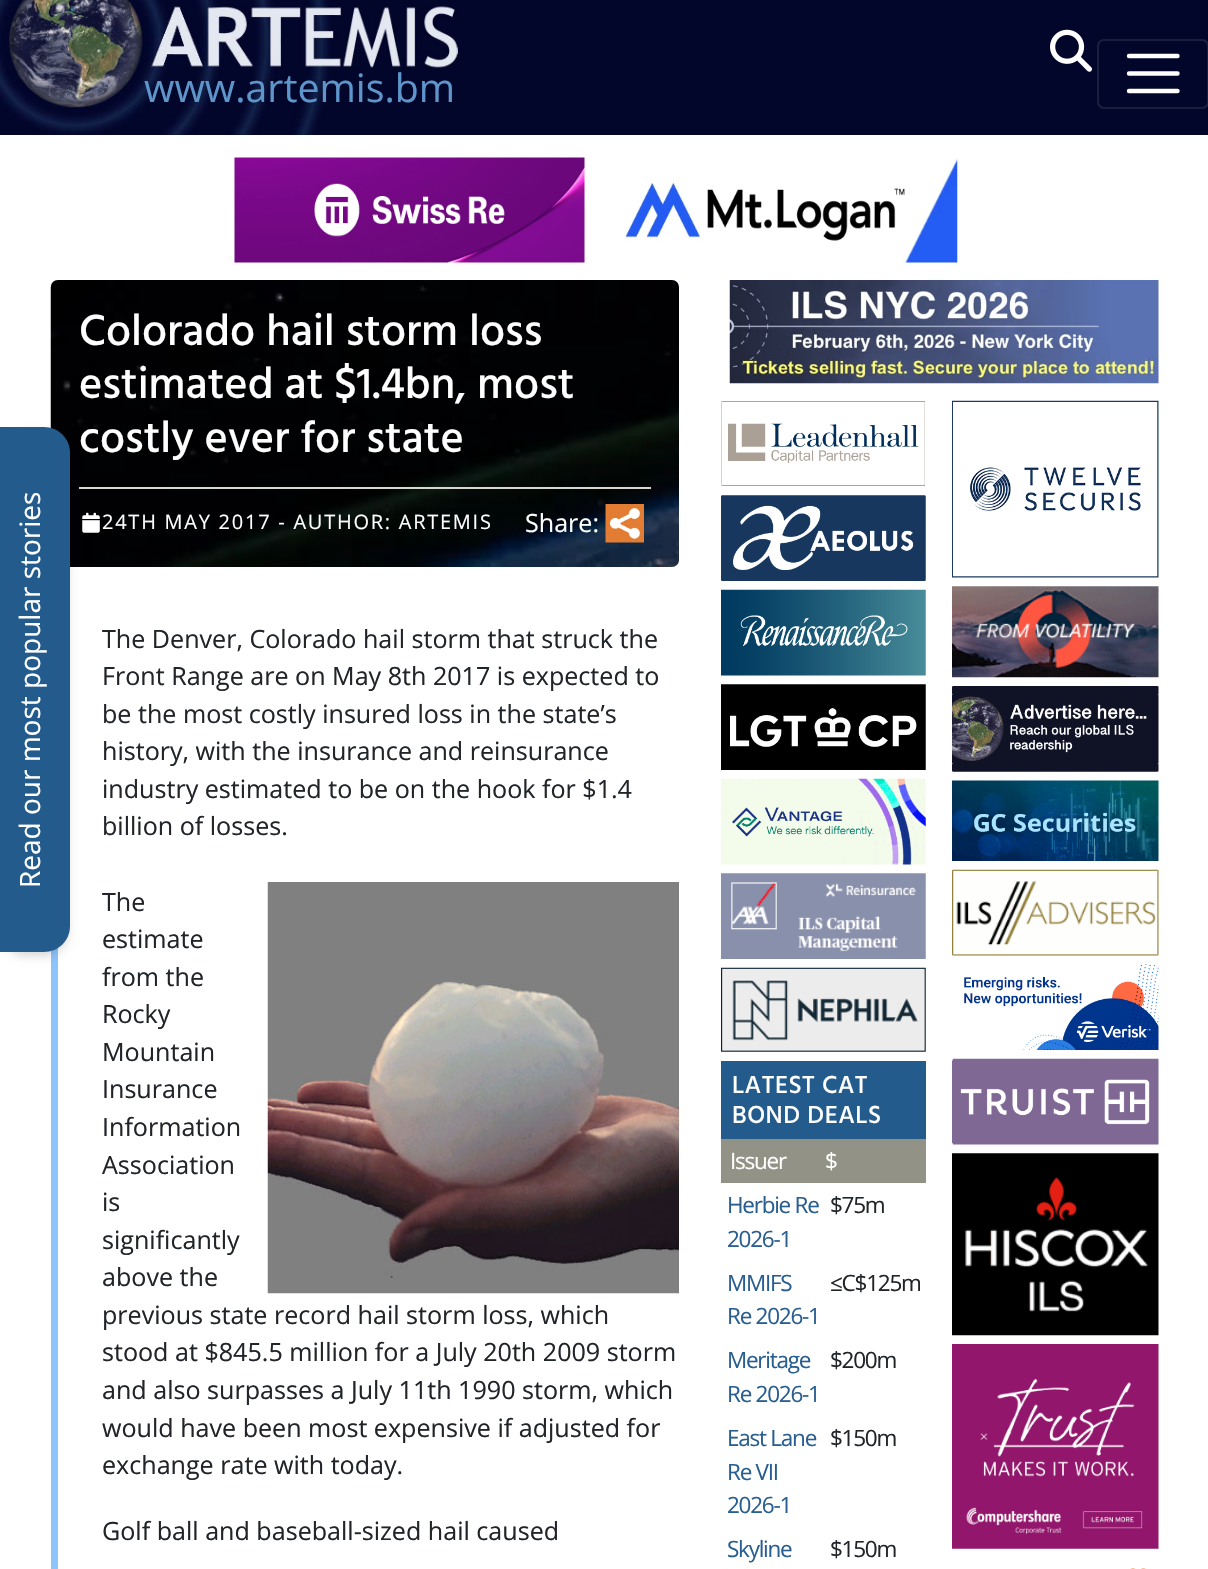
void draw(SkCanvas* canvas) {
    SkPaint paint;
    paint.setAntiAlias(true);
    auto spacedText = [&](const char* s, float x, float y, const SkFont& font, const SkPaint& ink, float letter, float word) {
        std::vector<SkGlyphID> glyphs(font.countText(s, strlen(s), SkTextEncoding::kUTF8));
        std::vector<float> xs(glyphs.size());
        font.textToGlyphs(s, strlen(s), SkTextEncoding::kUTF8, glyphs);
        font.getXPos(glyphs, xs, x);
        float extra = 0;
        for (size_t i = 0; i < glyphs.size(); i++) {
            xs[i] += extra;
            extra += letter + word * (glyphs[i] == font.unicharToGlyph(' '));
        }
        canvas->drawTextBlob(SkTextBlob::MakeFromPosHGlyphs(glyphs, xs, y, font), 0, 0, ink);
    };
    canvas->clear(0xFFFFFFFF);
    paint.setColor(0xFF02062A);
    canvas->drawRect(SkRect::MakeXYWH(0, 0, 1208, 135), paint);
    canvas->drawImageRect(SkImages::DeferredFromEncodedData(SkData::MakeFromFileName("img1.png")), SkRect::MakeXYWH(1050, 29, 42, 43), SkSamplingOptions());
    canvas->drawImageRect(SkImages::DeferredFromEncodedData(SkData::MakeFromFileName("img2.png")), SkRect::MakeXYWH(0, 0, 459, 135), SkSamplingOptions());
    SkFont font1(fontMgr->matchFamilyStyle("Open Sans", SkFontStyle::Normal()), 39.25f);
    font1.setSubpixel(true);
    paint.setColor(0xFF5E95CA);
    canvas->drawString("www.artemis.bm", 144, 102, font1, paint);
    paint.setStyle(SkPaint::kStroke_Style);
    paint.setStrokeWidth(2);
    paint.setColor(0xFF1B1F3F);
    canvas->drawRoundRect(SkRect::MakeXYWH(1098, 40, 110, 68), 6, 6, paint);
    paint.setStrokeWidth(4.4f);
    paint.setStrokeCap(SkPaint::kRound_Cap);
    paint.setColor(0xFFFFFFFF);
    canvas->drawPath(SkPathBuilder().moveTo(1129, 56).lineTo(1177.5f, 56).moveTo(1129, 73.5f).lineTo(1177.5f, 73.5f).moveTo(1129, 91).lineTo(1177.5f, 91).detach(), paint);
    canvas->drawImageRect(SkImages::DeferredFromEncodedData(SkData::MakeFromFileName("img5.png")), SkRect::MakeXYWH(50, 280, 629, 287), SkSamplingOptions());
    paint.setStyle(SkPaint::kFill_Style);
    paint.setColor(0xFFD7D7D0);
    canvas->drawRect(SkRect::MakeXYWH(79, 487, 572, 2), paint);
    paint.setColor(0xFF8EC4FC);
    canvas->drawRect(SkRect::MakeXYWH(51, 947, 7, 622), paint);
    paint.setColor(0x0F000000);
    paint.setMaskFilter(SkMaskFilter::MakeBlur(kNormal_SkBlurStyle, 3.5f));
    canvas->drawRoundRect(SkRect::MakeXYWH(2, 432, 66, 522), 25, 25, paint);
    paint.setMaskFilter(nullptr);
    canvas->drawImageRect(SkImages::DeferredFromEncodedData(SkData::MakeFromFileName("img6.png")), SkRect::MakeXYWH(82, 512, 18, 21), SkSamplingOptions());
    paint.setColor(0x1A000000);
    paint.setMaskFilter(SkMaskFilter::MakeBlur(kNormal_SkBlurStyle, 5));
    canvas->drawRoundRect(SkRect::MakeXYWH(2, 436, 66, 521), 25, 25, paint);
    paint.setMaskFilter(nullptr);
    paint.setColor(0xFF235C8C);
    canvas->drawPath(SkPathBuilder().moveTo(0, 427).lineTo(44, 427).cubicTo(58.5f, 427, 70, 438.5f, 70, 453).lineTo(70, 926).cubicTo(70, 940.5f, 58.5f, 952, 44, 952).lineTo(0, 952).close().detach(), paint);
    SkFont font2(fontMgr->matchFamilyStyle("Open Sans", SkFontStyle::Normal()), 28);
    font2.setSubpixel(true);
    paint.setColor(0xFFFFFFFF);
    canvas->save();
    canvas->rotate(-90, 40, 888);
    canvas->drawString("Read our most popular stories", 40, 888, font2, paint);
    canvas->restore();
    canvas->drawImageRect(SkImages::DeferredFromEncodedData(SkData::MakeFromFileName("img3.png")), SkRect::MakeXYWH(234, 157, 351, 106), SkSamplingOptions());
    canvas->drawImageRect(SkImages::DeferredFromEncodedData(SkData::MakeFromFileName("img4.png")), SkRect::MakeXYWH(625, 158, 333, 105), SkSamplingOptions());
    SkFont font3(fontMgr->matchFamilyStyle("Hind", SkFontStyle(500, SkFontStyle::kNormal_Width, SkFontStyle::kUpright_Slant)), 44.5f);
    font3.setSubpixel(true);
    canvas->drawString("Colorado hail storm loss", 79, 345, font3, paint);
    canvas->drawString("estimated at $1.4bn, most", 79, 398, font3, paint);
    canvas->drawString("costly ever for state", 79, 452, font3, paint);
    SkFont font4(fontMgr->matchFamilyStyle("Open Sans", SkFontStyle::Normal()), 20);
    font4.setSubpixel(true);
    spacedText("24TH MAY 2017 - AUTHOR: ARTEMIS", 102, 529, font4, paint, 1.75f, 0);
    SkFont font5(fontMgr->matchFamilyStyle("Open Sans", SkFontStyle::Normal()), 25.1f);
    font5.setSubpixel(true);
    canvas->drawString("Share:", 525, 532, font5, paint);
    canvas->drawImageRect(SkImages::DeferredFromEncodedData(SkData::MakeFromFileName("img7.png")), SkRect::MakeXYWH(605, 504, 39, 39), SkSamplingOptions());
    paint.setColor(0xFF212529);
    canvas->drawString("The Denver, Colorado hail storm that struck the", 102, 648, font5, paint);
    canvas->drawString("Front Range are on May 8th 2017 is expected to", 102, 685, font5, paint);
    canvas->drawString("be the most costly insured loss in the state’s", 102, 723, font5, paint);
    canvas->drawString("history, with the insurance and reinsurance", 102, 760, font5, paint);
    canvas->drawString("industry estimated to be on the hook for $1.4", 102, 798, font5, paint);
    canvas->drawString("billion of losses.", 102, 835, font5, paint);
    canvas->drawString("The", 102, 911, font5, paint);
    canvas->drawImageRect(SkImages::DeferredFromEncodedData(SkData::MakeFromFileName("img8.png")), SkRect::MakeXYWH(267, 882, 412, 412), SkSamplingOptions());
    canvas->drawString("estimate", 102, 948, font5, paint);
    canvas->drawString("from the", 102, 986, font5, paint);
    canvas->drawString("Rocky", 102, 1023, font5, paint);
    canvas->drawString("Mountain", 102, 1061, font5, paint);
    canvas->drawString("Insurance", 102, 1098, font5, paint);
    canvas->drawString("Information", 102, 1136, font5, paint);
    canvas->drawString("Association", 102, 1174, font5, paint);
    canvas->drawString("is", 102, 1211, font5, paint);
    canvas->drawString("significantly", 102, 1249, font5, paint);
    canvas->drawString("above the", 102, 1286, font5, paint);
    canvas->drawString("previous state record hail storm loss, which", 102, 1324, font5, paint);
    canvas->drawString("stood at $845.5 million for a July 20th 2009 storm", 102, 1361, font5, paint);
    canvas->drawString("and also surpasses a July 11th 1990 storm, which", 102, 1399, font5, paint);
    canvas->drawString("would have been most expensive if adjusted for", 102, 1437, font5, paint);
    canvas->drawString("exchange rate with today.", 102, 1474, font5, paint);
    canvas->drawString("Golf ball and baseball-sized hail caused", 102, 1540, font5, paint);
    canvas->drawImageRect(SkImages::DeferredFromEncodedData(SkData::MakeFromFileName("img9.png")), SkRect::MakeXYWH(729, 280, 430, 104), SkSamplingOptions());
    canvas->drawImageRect(SkImages::DeferredFromEncodedData(SkData::MakeFromFileName("img10.png")), SkRect::MakeXYWH(721, 401, 204, 85), SkSamplingOptions());
    canvas->drawImageRect(SkImages::DeferredFromEncodedData(SkData::MakeFromFileName("img11.png")), SkRect::MakeXYWH(721, 495, 205, 86), SkSamplingOptions());
    canvas->drawImageRect(SkImages::DeferredFromEncodedData(SkData::MakeFromFileName("img12.png")), SkRect::MakeXYWH(721, 589, 205, 87), SkSamplingOptions());
    canvas->drawImageRect(SkImages::DeferredFromEncodedData(SkData::MakeFromFileName("img13.png")), SkRect::MakeXYWH(721, 684, 205, 86), SkSamplingOptions());
    canvas->drawImageRect(SkImages::DeferredFromEncodedData(SkData::MakeFromFileName("img14.png")), SkRect::MakeXYWH(721, 778, 205, 87), SkSamplingOptions());
    canvas->drawImageRect(SkImages::DeferredFromEncodedData(SkData::MakeFromFileName("img15.png")), SkRect::MakeXYWH(721, 873, 205, 86), SkSamplingOptions());
    canvas->drawImageRect(SkImages::DeferredFromEncodedData(SkData::MakeFromFileName("img16.png")), SkRect::MakeXYWH(721, 967, 205, 85), SkSamplingOptions());
    paint.setColor(0xFF235C8C);
    canvas->drawRect(SkRect::MakeXYWH(721, 1061, 205, 78), paint);
    SkFont font6(fontMgr->matchFamilyStyle("Hind", SkFontStyle(500, SkFontStyle::kNormal_Width, SkFontStyle::kUpright_Slant)), 25.25f);
    font6.setSubpixel(true);
    paint.setColor(0xFFFFFFFF);
    spacedText("LATEST CAT", 732, 1093, font6, paint, 0.5f, 0);
    spacedText("BOND DEALS", 732, 1123, font6, paint, 0.5f, 0);
    paint.setColor(0xFF929287);
    canvas->drawRect(SkRect::MakeXYWH(721, 1139, 205, 44), paint);
    SkFont font7(fontMgr->matchFamilyStyle("Open Sans", SkFontStyle::Normal()), 22.5f);
    font7.setSubpixel(true);
    paint.setColor(0xFFFFFFFF);
    spacedText("Issuer", 730, 1169, font7, paint, -1.25f, 0);
    spacedText("$", 825, 1169, font7, paint, -1.25f, 0);
    paint.setColor(0xFF295E91);
    spacedText("Herbie Re", 727, 1213, font7, paint, -1.25f, 0);
    spacedText("2026-1", 727, 1247, font7, paint, -1.25f, 0);
    paint.setColor(0xFF212529);
    spacedText("$75m", 830, 1213, font7, paint, -1.25f, 0);
    paint.setColor(0xFF295E91);
    spacedText("MMIFS", 727, 1291, font7, paint, -1.25f, 0);
    spacedText("Re 2026-1", 727, 1324, font7, paint, -1.25f, 0);
    paint.setColor(0xFF212529);
    spacedText("≤C$125m", 830, 1291, font7, paint, -1.25f, 0);
    paint.setColor(0xFF295E91);
    spacedText("Meritage", 727, 1368, font7, paint, -1.25f, 0);
    spacedText("Re 2026-1", 727, 1402, font7, paint, -1.25f, 0);
    paint.setColor(0xFF212529);
    spacedText("$200m", 830, 1368, font7, paint, -1.25f, 0);
    paint.setColor(0xFF295E91);
    spacedText("East Lane", 727, 1446, font7, paint, -1.25f, 0);
    spacedText("Re VII", 727, 1480, font7, paint, -1.25f, 0);
    spacedText("2026-1", 727, 1513, font7, paint, -1.25f, 0);
    paint.setColor(0xFF212529);
    spacedText("$150m", 830, 1446, font7, paint, -1.25f, 0);
    paint.setColor(0xFF295E91);
    spacedText("Skyline", 727, 1557, font7, paint, -1.25f, 0);
    paint.setColor(0xFF212529);
    spacedText("$150m", 830, 1557, font7, paint, -1.25f, 0);
    canvas->drawImageRect(SkImages::DeferredFromEncodedData(SkData::MakeFromFileName("img17.png")), SkRect::MakeXYWH(952, 400, 207, 178), SkSamplingOptions());
    canvas->drawImageRect(SkImages::DeferredFromEncodedData(SkData::MakeFromFileName("img18.png")), SkRect::MakeXYWH(952, 586, 207, 92), SkSamplingOptions());
    canvas->drawImageRect(SkImages::DeferredFromEncodedData(SkData::MakeFromFileName("img19.png")), SkRect::MakeXYWH(952, 686, 207, 86), SkSamplingOptions());
    canvas->drawImageRect(SkImages::DeferredFromEncodedData(SkData::MakeFromFileName("img20.png")), SkRect::MakeXYWH(952, 780, 207, 81), SkSamplingOptions());
    canvas->drawImageRect(SkImages::DeferredFromEncodedData(SkData::MakeFromFileName("img21.png")), SkRect::MakeXYWH(952, 869, 207, 87), SkSamplingOptions());
    canvas->drawImageRect(SkImages::DeferredFromEncodedData(SkData::MakeFromFileName("img22.png")), SkRect::MakeXYWH(964, 964, 195, 86), SkSamplingOptions());
    canvas->drawImageRect(SkImages::DeferredFromEncodedData(SkData::MakeFromFileName("img23.png")), SkRect::MakeXYWH(952, 1058, 207, 87), SkSamplingOptions());
    canvas->drawImageRect(SkImages::DeferredFromEncodedData(SkData::MakeFromFileName("img24.png")), SkRect::MakeXYWH(952, 1153, 207, 183), SkSamplingOptions());
    canvas->drawImageRect(SkImages::DeferredFromEncodedData(SkData::MakeFromFileName("img25.png")), SkRect::MakeXYWH(952, 1344, 207, 205), SkSamplingOptions());
    canvas->drawImageRect(SkImages::DeferredFromEncodedData(SkData::MakeFromFileName("img26.png")), SkRect::MakeXYWH(1130, 1568, 17, 1), SkSamplingOptions());
}
